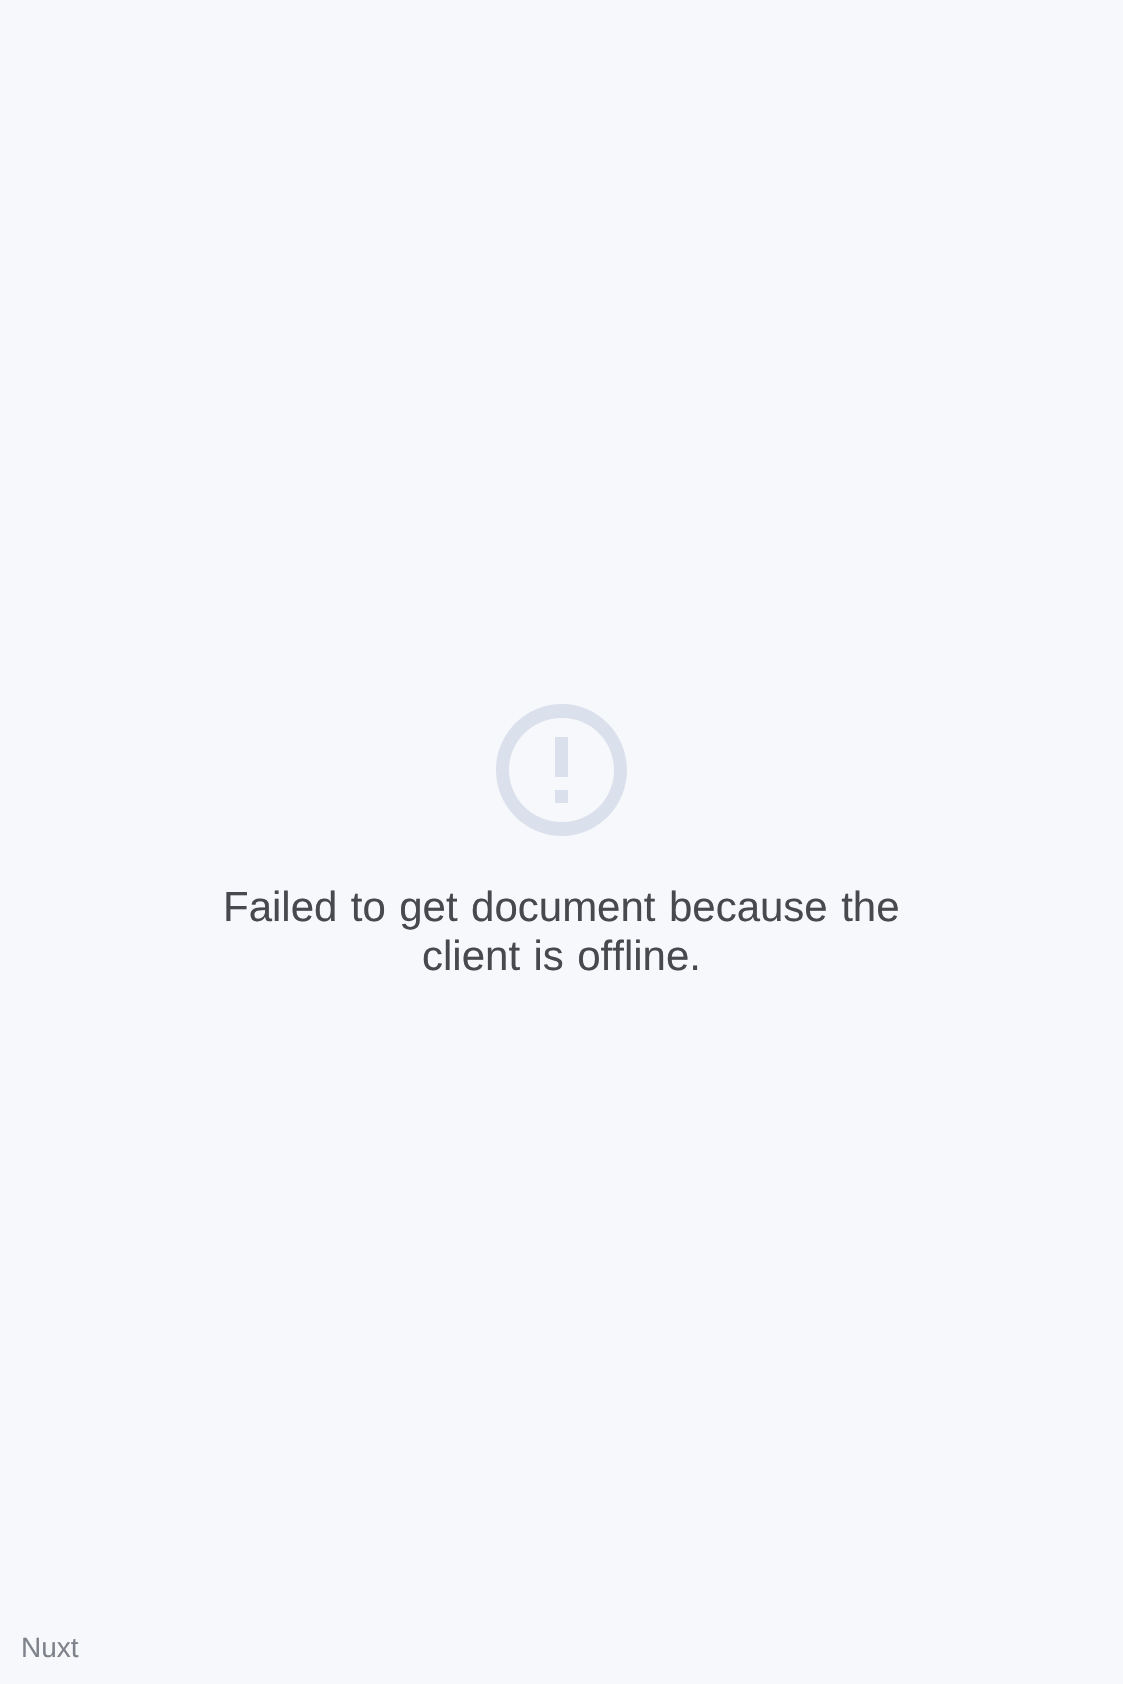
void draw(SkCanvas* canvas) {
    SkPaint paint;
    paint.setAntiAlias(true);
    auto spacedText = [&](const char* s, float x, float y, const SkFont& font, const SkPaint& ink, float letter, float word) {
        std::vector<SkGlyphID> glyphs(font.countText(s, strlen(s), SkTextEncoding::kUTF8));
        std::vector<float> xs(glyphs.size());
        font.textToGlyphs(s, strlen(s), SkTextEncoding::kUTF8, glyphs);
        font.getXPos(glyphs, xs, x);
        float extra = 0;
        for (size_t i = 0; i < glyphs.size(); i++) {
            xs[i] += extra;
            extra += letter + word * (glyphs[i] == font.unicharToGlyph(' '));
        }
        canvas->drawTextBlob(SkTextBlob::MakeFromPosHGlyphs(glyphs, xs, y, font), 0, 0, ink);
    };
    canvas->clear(0xFFF7F8FB);
    paint.setColor(0xFFDBE1EC);
    canvas->drawPath(SkPathBuilder().moveTo(555, 790).lineTo(568, 790).lineTo(568, 803).lineTo(555, 803).close().moveTo(555, 737).lineTo(568, 737).lineTo(568, 777).lineTo(555, 777).close().moveTo(562, 704).cubicTo(525, 704, 496, 734, 496, 770).cubicTo(496, 806, 525, 836, 562, 836).cubicTo(598, 836, 627, 806, 627, 770).cubicTo(627, 734, 598, 704, 562, 704).close().moveTo(562, 822).cubicTo(533, 822, 509, 799, 509, 770).cubicTo(509, 741, 533, 718, 562, 718).cubicTo(591, 718, 614, 741, 614, 770).cubicTo(614, 799, 591, 822, 562, 822).close().detach(), paint);
    SkFont font1(fontMgr->matchFamilyStyle("Liberation Sans", SkFontStyle::Normal()), 42);
    font1.setSubpixel(true);
    paint.setColor(0xFF47494E);
    spacedText("Failed to get document because the", 223, 921, font1, paint, 0, 1.75f);
    spacedText("client is offline.", 422, 970, font1, paint, 0, 1.75f);
    SkFont font2(fontMgr->matchFamilyStyle("Liberation Sans", SkFontStyle::Normal()), 28);
    font2.setSubpixel(true);
    paint.setColor(0xFF7F828B);
    canvas->drawString("Nuxt", 21, 1657, font2, paint);
}
